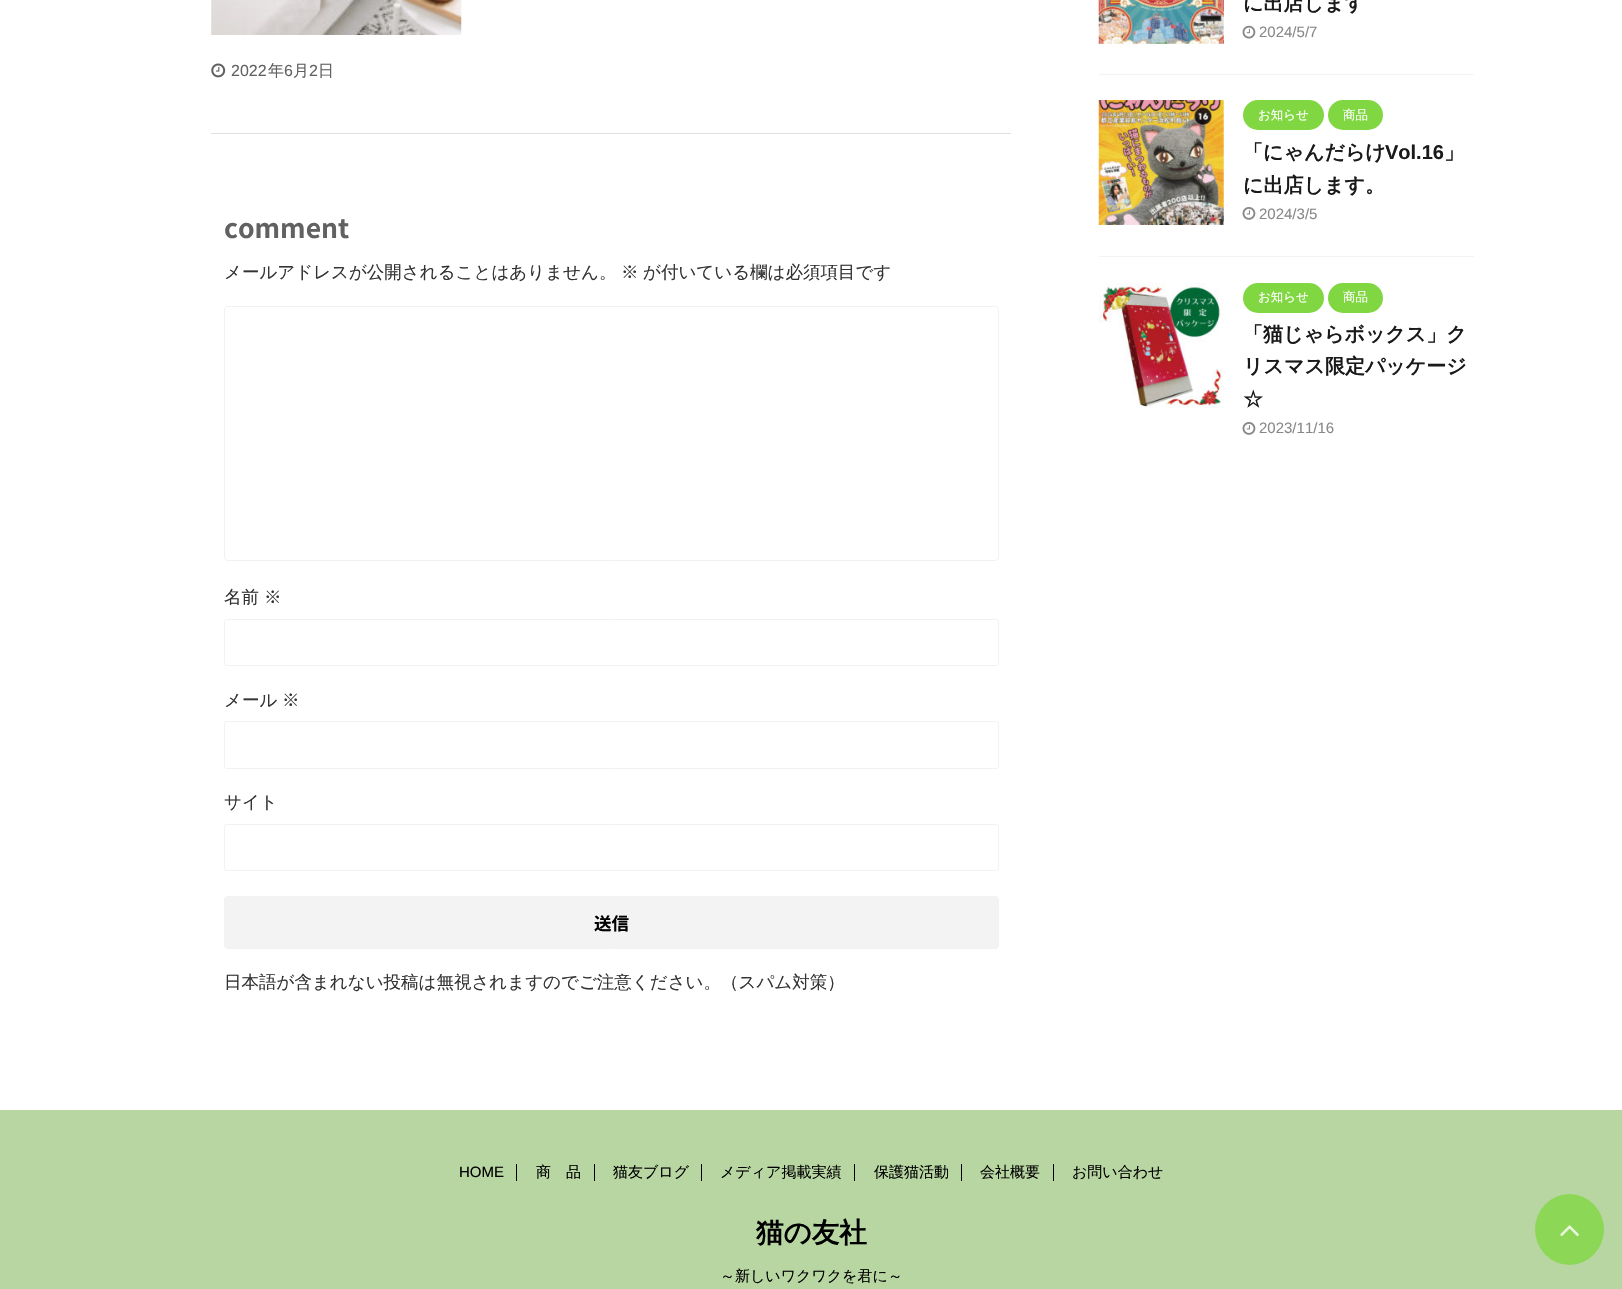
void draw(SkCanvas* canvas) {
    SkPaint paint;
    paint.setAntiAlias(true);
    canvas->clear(0xFFFFFFFF);
    canvas->drawImageRect(SkImages::DeferredFromEncodedData(SkData::MakeFromFileName("img1.png")), SkRect::MakeXYWH(211, 0, 251, 35), SkSamplingOptions());
    canvas->drawImageRect(SkImages::DeferredFromEncodedData(SkData::MakeFromFileName("img2.png")), SkRect::MakeXYWH(211, 63, 15, 15), SkSamplingOptions());
    SkFont font1(fontMgr->matchFamilyStyle("Liberation Sans", SkFontStyle::Normal()), 16);
    font1.setSubpixel(true);
    paint.setColor(0xFF616161);
    canvas->drawString("2022", 231, 76, font1, paint);
    SkFont font2(fontMgr->matchFamilyStyle("WenQuanYi Zen Hei", SkFontStyle(500, SkFontStyle::kNormal_Width, SkFontStyle::kUpright_Slant)), 16);
    font2.setSubpixel(true);
    canvas->drawString("年", 268, 76, font2, paint);
    canvas->drawString("6", 284, 76, font1, paint);
    canvas->drawString("月", 293, 76, font2, paint);
    canvas->drawString("2", 309, 76, font1, paint);
    canvas->drawString("日", 318, 76, font2, paint);
    paint.setColor(0xFFE0E0E0);
    canvas->drawRect(SkRect::MakeXYWH(211, 133, 800, 1), paint);
    SkFont font3(fontMgr->matchFamilyStyle("Noto Sans JP", SkFontStyle::Bold()), 26.5f);
    font3.setSubpixel(true);
    paint.setColor(0xFF616161);
    canvas->drawString("comment", 224, 238, font3, paint);
    SkFont font4(fontMgr->matchFamilyStyle("WenQuanYi Zen Hei", SkFontStyle(500, SkFontStyle::kNormal_Width, SkFontStyle::kUpright_Slant)), 17.5f);
    font4.setSubpixel(true);
    paint.setColor(0xFF333333);
    canvas->drawString("メールアドレスが公開されることはありません。", 224, 278, font4, paint);
    canvas->drawString("※", 621, 278, font4, paint);
    canvas->drawString("が付いている欄は必須項目です", 643, 278, font4, paint);
    paint.setStyle(SkPaint::kStroke_Style);
    paint.setStrokeWidth(1);
    paint.setColor(0xFFF2F2F2);
    canvas->drawRoundRect(SkRect::MakeXYWH(224.5f, 306.5f, 774, 254), 3.5f, 3.5f, paint);
    paint.setStyle(SkPaint::kFill_Style);
    paint.setColor(0xFF333333);
    canvas->drawString("名前", 224, 603, font4, paint);
    canvas->drawString("※", 264, 603, font4, paint);
    paint.setStyle(SkPaint::kStroke_Style);
    paint.setColor(0xFFF2F2F2);
    canvas->drawRoundRect(SkRect::MakeXYWH(224.5f, 619.5f, 774, 46), 2, 2, paint);
    paint.setStyle(SkPaint::kFill_Style);
    paint.setColor(0xFF333333);
    canvas->drawString("メール", 224, 706, font4, paint);
    canvas->drawString("※", 282, 706, font4, paint);
    paint.setStyle(SkPaint::kStroke_Style);
    paint.setColor(0xFFF2F2F2);
    canvas->drawRoundRect(SkRect::MakeXYWH(224.5f, 721.5f, 774, 47), 2, 2, paint);
    paint.setStyle(SkPaint::kFill_Style);
    paint.setColor(0xFF333333);
    canvas->drawString("サイト", 224, 808, font4, paint);
    paint.setStyle(SkPaint::kStroke_Style);
    paint.setColor(0xFFF2F2F2);
    canvas->drawRoundRect(SkRect::MakeXYWH(224.5f, 824.5f, 774, 46), 2, 2, paint);
    paint.setStyle(SkPaint::kFill_Style);
    paint.setColor(0xFFF3F3F3);
    canvas->drawRoundRect(SkRect::MakeXYWH(224.5f, 896.5f, 774, 52), 3.5f, 3.5f, paint);
    paint.setStyle(SkPaint::kStroke_Style);
    paint.setColor(0xFFF2F2F2);
    canvas->drawRoundRect(SkRect::MakeXYWH(224.5f, 896.5f, 774, 52), 3.5f, 3.5f, paint);
    SkFont font5(fontMgr->matchFamilyStyle("Noto Sans JP", SkFontStyle::Bold()), 17.5f);
    font5.setSubpixel(true);
    paint.setStyle(SkPaint::kFill_Style);
    paint.setColor(0xFF000000);
    canvas->drawString("送信", 594, 930, font5, paint);
    paint.setColor(0xFF333333);
    canvas->drawString("日本語が含まれない投稿は無視されますのでご注意ください。（スパム対策）", 224, 988, font4, paint);
    paint.setColor(0xFFF3F3F3);
    canvas->drawRect(SkRect::MakeXYWH(1099, 74, 375, 1), paint);
    canvas->drawImageRect(SkImages::DeferredFromEncodedData(SkData::MakeFromFileName("img3.png")), SkRect::MakeXYWH(1098, 0, 126, 44), SkSamplingOptions());
    SkFont font6(fontMgr->matchFamilyStyle("WenQuanYi Zen Hei", SkFontStyle::Bold()), 20);
    font6.setSubpixel(true);
    paint.setColor(0xFF1A1A1A);
    canvas->drawString("に出店します", 1243, 10, font6, paint);
    canvas->drawImageRect(SkImages::DeferredFromEncodedData(SkData::MakeFromFileName("img4.png")), SkRect::MakeXYWH(1242, 25, 14, 14), SkSamplingOptions());
    SkFont font7(fontMgr->matchFamilyStyle("Liberation Sans", SkFontStyle::Normal()), 15);
    font7.setSubpixel(true);
    paint.setColor(0xFF888888);
    canvas->drawString("2024/5/7", 1259, 37, font7, paint);
    paint.setColor(0xFFF3F3F3);
    canvas->drawRect(SkRect::MakeXYWH(1099, 256, 375, 1), paint);
    canvas->drawImageRect(SkImages::DeferredFromEncodedData(SkData::MakeFromFileName("img5.png")), SkRect::MakeXYWH(1098, 100, 126, 125), SkSamplingOptions());
    paint.setColor(0xFF81D742);
    canvas->drawRoundRect(SkRect::MakeXYWH(1243, 100, 81, 30), 15, 15, paint);
    SkFont font8(fontMgr->matchFamilyStyle("WenQuanYi Zen Hei", SkFontStyle(500, SkFontStyle::kNormal_Width, SkFontStyle::kUpright_Slant)), 12.5f);
    font8.setSubpixel(true);
    paint.setColor(0xFFFFFFFF);
    canvas->drawString("お知らせ", 1258, 119, font8, paint);
    paint.setColor(0xFF81D742);
    canvas->drawRoundRect(SkRect::MakeXYWH(1328, 100, 55, 30), 15, 15, paint);
    paint.setColor(0xFFFFFFFF);
    canvas->drawString("商品", 1343, 119, font8, paint);
    paint.setColor(0xFF1A1A1A);
    canvas->drawString("「にゃんだらけ", 1243, 159, font6, paint);
    SkFont font9(fontMgr->matchFamilyStyle("Liberation Sans", SkFontStyle::Bold()), 20);
    font9.setSubpixel(true);
    canvas->drawString("Vol.16", 1385, 159, font9, paint);
    canvas->drawString("」", 1444, 159, font6, paint);
    canvas->drawString("に出店します。", 1243, 192, font6, paint);
    canvas->drawImageRect(SkImages::DeferredFromEncodedData(SkData::MakeFromFileName("img6.png")), SkRect::MakeXYWH(1242, 207, 14, 13), SkSamplingOptions());
    paint.setColor(0xFF888888);
    canvas->drawString("2024/3/5", 1259, 219, font7, paint);
    canvas->drawImageRect(SkImages::DeferredFromEncodedData(SkData::MakeFromFileName("img7.png")), SkRect::MakeXYWH(1099, 282, 125, 126), SkSamplingOptions());
    paint.setColor(0xFF81D742);
    canvas->drawRoundRect(SkRect::MakeXYWH(1243, 283, 81, 30), 15, 15, paint);
    paint.setColor(0xFFFFFFFF);
    canvas->drawString("お知らせ", 1258, 301, font8, paint);
    paint.setColor(0xFF81D742);
    canvas->drawRoundRect(SkRect::MakeXYWH(1328, 283, 55, 30), 15, 15, paint);
    paint.setColor(0xFFFFFFFF);
    canvas->drawString("商品", 1343, 301, font8, paint);
    paint.setColor(0xFF1A1A1A);
    canvas->drawString("「猫じゃらボックス」ク", 1243, 341, font6, paint);
    canvas->drawString("リスマス限定パッケージ", 1243, 373, font6, paint);
    canvas->drawString("☆", 1243, 406, font6, paint);
    canvas->drawImageRect(SkImages::DeferredFromEncodedData(SkData::MakeFromFileName("img6.png")), SkRect::MakeXYWH(1242, 422, 14, 13), SkSamplingOptions());
    paint.setColor(0xFF888888);
    canvas->drawString("2023/11/16", 1259, 433, font7, paint);
    paint.setColor(0xFFB8D6A2);
    canvas->drawRect(SkRect::MakeXYWH(0, 1110, 1622, 179), paint);
    paint.setColor(0xFF000000);
    canvas->drawString("HOME", 459, 1177, font7, paint);
    canvas->drawRect(SkRect::MakeXYWH(516, 1164, 1, 17), paint);
    SkFont font10(fontMgr->matchFamilyStyle("WenQuanYi Zen Hei", SkFontStyle(500, SkFontStyle::kNormal_Width, SkFontStyle::kUpright_Slant)), 15);
    font10.setSubpixel(true);
    canvas->drawString("商　品", 536, 1177, font10, paint);
    canvas->drawRect(SkRect::MakeXYWH(594, 1164, 1, 17), paint);
    canvas->drawString("猫友ブログ", 613, 1177, font10, paint);
    canvas->drawRect(SkRect::MakeXYWH(701, 1164, 1, 17), paint);
    canvas->drawString("メディア掲載実績", 720, 1177, font10, paint);
    canvas->drawRect(SkRect::MakeXYWH(854, 1164, 1, 17), paint);
    canvas->drawString("保護猫活動", 874, 1177, font10, paint);
    canvas->drawRect(SkRect::MakeXYWH(961, 1164, 1, 17), paint);
    canvas->drawString("会社概要", 980, 1177, font10, paint);
    canvas->drawRect(SkRect::MakeXYWH(1053, 1164, 1, 17), paint);
    canvas->drawString("お問い合わせ", 1072, 1177, font10, paint);
    SkFont font11(fontMgr->matchFamilyStyle("WenQuanYi Zen Hei", SkFontStyle::Bold()), 27.5f);
    font11.setSubpixel(true);
    canvas->drawString("猫の友社", 756, 1242, font11, paint);
    canvas->drawString("～新しいワクワクを君に～", 720, 1281, font10, paint);
    paint.setColor(0xFF8CD755);
    canvas->drawOval(SkRect::MakeXYWH(1535, 1194, 69, 71), paint);
    canvas->drawImageRect(SkImages::DeferredFromEncodedData(SkData::MakeFromFileName("img8.png")), SkRect::MakeXYWH(1560, 1225, 19, 12), SkSamplingOptions());
}
